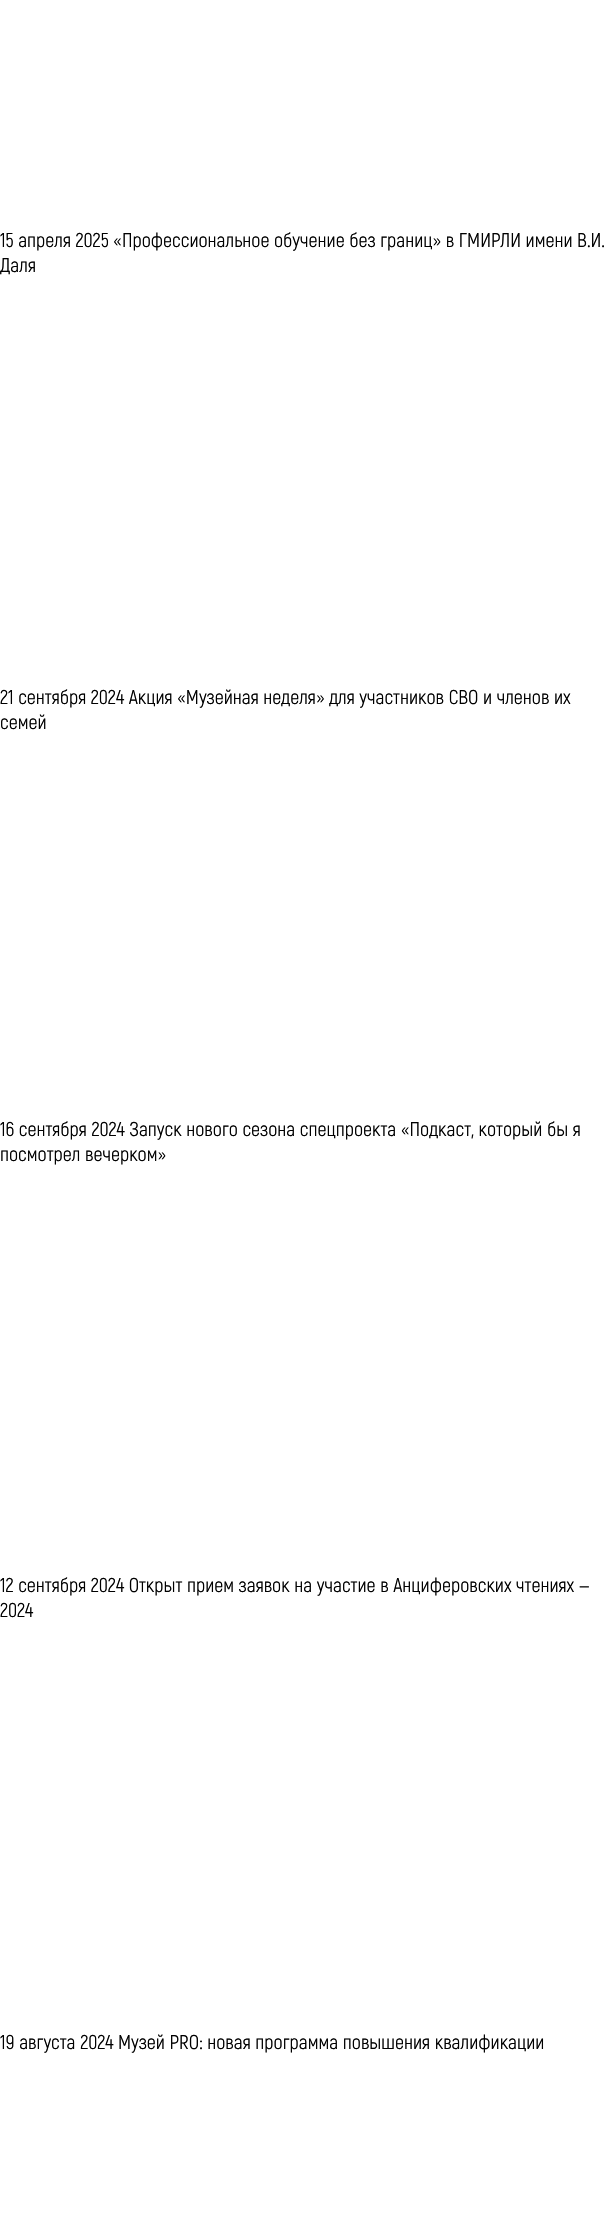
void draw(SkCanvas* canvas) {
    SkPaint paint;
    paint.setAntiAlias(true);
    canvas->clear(0xFFFFFFFF);
    SkFont font1(fontMgr->matchFamilyStyle("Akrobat", SkFontStyle::Normal()), 20);
    font1.setSubpixel(true);
    paint.setColor(0xFF000000);
    canvas->drawString("15 апреля 2025 «Профессиональное обучение без границ» в ГМИРЛИ имени В.И.", 0, 247, font1, paint);
    canvas->drawString("Даля", 0, 272, font1, paint);
    canvas->drawString("21 сентября 2024 Акция «Музейная неделя» для участников СВО и членов их", 0, 704, font1, paint);
    canvas->drawString("семей", 0, 729, font1, paint);
    canvas->drawString("16 сентября 2024 Запуск нового сезона спецпроекта «Подкаст, который бы я", 0, 1136, font1, paint);
    canvas->drawString("посмотрел вечерком»", 0, 1161, font1, paint);
    canvas->drawString("12 сентября 2024 Открыт прием заявок на участие в Анциферовских чтениях —", 0, 1592, font1, paint);
    canvas->drawString("2024", 0, 1617, font1, paint);
    canvas->drawString("19 августа 2024 Музей PRO: новая программа повышения квалификации", 0, 2049, font1, paint);
}
